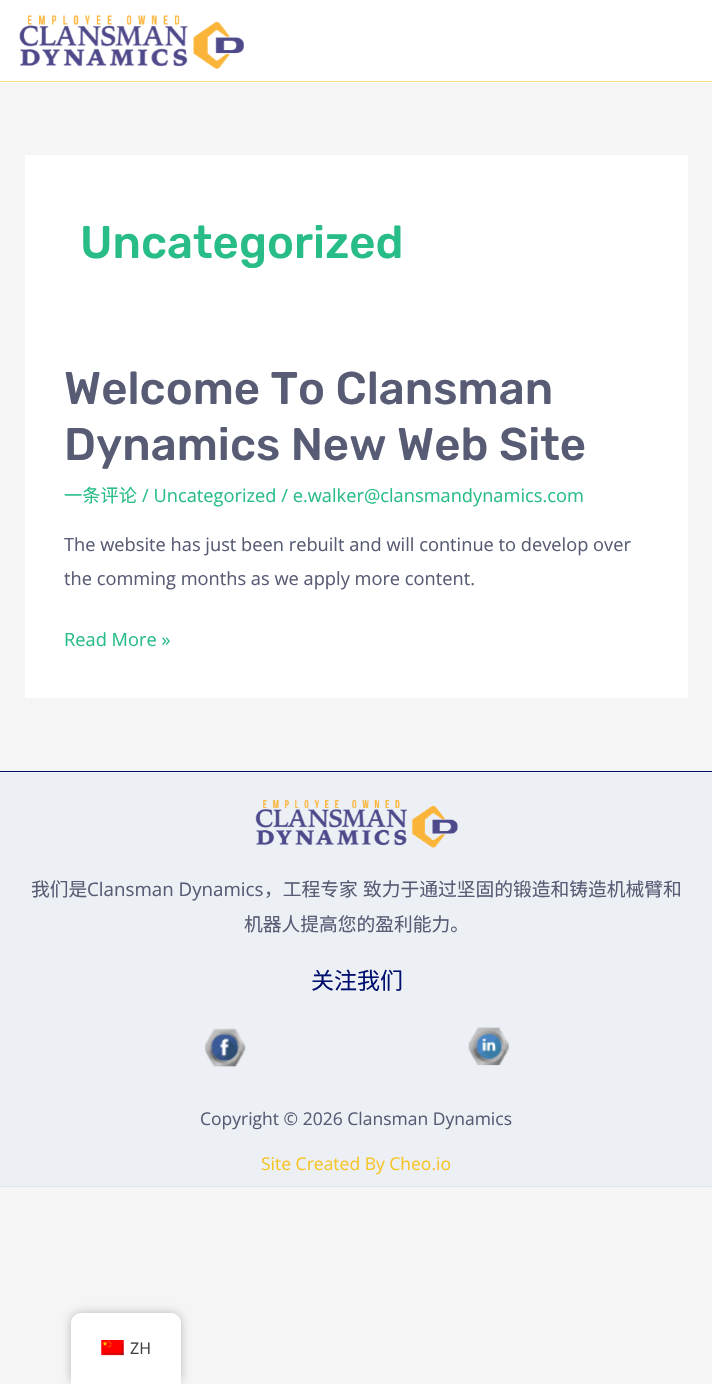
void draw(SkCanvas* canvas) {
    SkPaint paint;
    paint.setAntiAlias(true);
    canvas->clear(0xFFF5F5F5);
    paint.setColor(0xFFFFFFFF);
    canvas->drawRect(SkRect::MakeXYWH(0, 0, 712, 83), paint);
    paint.setColor(0xFFFADA79);
    canvas->drawRect(SkRect::MakeXYWH(0, 81, 712, 1), paint);
    canvas->drawImageRect(SkImages::DeferredFromEncodedData(SkData::MakeFromFileName("img1.png")), SkRect::MakeXYWH(19, 15, 225, 54), SkSamplingOptions());
    paint.setColor(0xFFFFFFFF);
    canvas->drawRect(SkRect::MakeXYWH(25, 155, 663, 543), paint);
    SkFont font1(fontMgr->matchFamilyStyle("Rubik", SkFontStyle(300, SkFontStyle::kNormal_Width, SkFontStyle::kUpright_Slant)), 45.6f);
    font1.setSubpixel(true);
    paint.setColor(0xFF28BD86);
    canvas->drawString("Uncategorized", 80, 258, font1, paint);
    paint.setColor(0xFF575C74);
    canvas->drawString("Welcome To Clansman", 64, 404, font1, paint);
    canvas->drawString("Dynamics New Web Site", 64, 460, font1, paint);
    SkFont font2(fontMgr->matchFamilyStyle("Noto Sans CJK SC", SkFontStyle::Normal()), 18.25f);
    font2.setSubpixel(true);
    paint.setColor(0xFF28BD86);
    canvas->drawString("一条评论", 64, 502, font2, paint);
    SkFont font3(fontMgr->matchFamilyStyle("Open Sans", SkFontStyle::Normal()), 18.25f);
    font3.setSubpixel(true);
    canvas->drawString("/ Uncategorized / e.walker@clansmandynamics.com", 142, 502, font3, paint);
    paint.setColor(0xFF575C74);
    canvas->drawString("The website has just been rebuilt and will continue to develop over", 64, 551, font3, paint);
    canvas->drawString("the comming months as we apply more content.", 64, 585, font3, paint);
    paint.setColor(0xFF28BD86);
    canvas->drawString("Read More »", 64, 646, font3, paint);
    paint.setColor(0xFFECF0F5);
    canvas->drawRect(SkRect::MakeXYWH(0, 773, 712, 413), paint);
    paint.setColor(0xFF000F6E);
    canvas->drawRect(SkRect::MakeXYWH(0, 771, 712, 1), paint);
    canvas->drawImageRect(SkImages::DeferredFromEncodedData(SkData::MakeFromFileName("img2.png")), SkRect::MakeXYWH(255, 800, 203, 48), SkSamplingOptions());
    SkFont font4(fontMgr->matchFamilyStyle("Noto Sans CJK SC", SkFontStyle::Normal()), 18.75f);
    font4.setSubpixel(true);
    paint.setColor(0xFF575C74);
    canvas->drawString("我们是", 31, 896, font4, paint);
    SkFont font5(fontMgr->matchFamilyStyle("Open Sans", SkFontStyle::Normal()), 18.75f);
    font5.setSubpixel(true);
    canvas->drawString("Clansman Dynamics", 87, 896, font5, paint);
    canvas->drawString("，工程专家", 264, 896, font4, paint);
    canvas->drawString("致力于通过坚固的锻造和铸造机械臂和", 363, 896, font4, paint);
    canvas->drawString("机器人提高您的盈利能力。", 244, 931, font4, paint);
    SkFont font6(fontMgr->matchFamilyStyle("Noto Sans CJK SC", SkFontStyle::Normal()), 23);
    font6.setSubpixel(true);
    paint.setColor(0xFF000F6E);
    canvas->drawString("关注我们", 311, 989, font6, paint);
    canvas->drawImageRect(SkImages::DeferredFromEncodedData(SkData::MakeFromFileName("img3.png")), SkRect::MakeXYWH(205, 1028, 41, 39), SkSamplingOptions());
    canvas->drawImageRect(SkImages::DeferredFromEncodedData(SkData::MakeFromFileName("img4.png")), SkRect::MakeXYWH(468, 1027, 41, 39), SkSamplingOptions());
    paint.setColor(0xFFE1E6EC);
    canvas->drawRect(SkRect::MakeXYWH(0, 1186, 712, 1), paint);
    SkFont font7(fontMgr->matchFamilyStyle("Open Sans", SkFontStyle::Normal()), 17.5f);
    font7.setSubpixel(true);
    paint.setColor(0xFF575C74);
    canvas->drawString("Copyright © 2026 Clansman Dynamics", 200, 1125, font7, paint);
    paint.setColor(0xFFF7C42A);
    canvas->drawString("Site Created By Cheo.io", 261, 1170, font7, paint);
    paint.setColor(0x40000000);
    paint.setMaskFilter(SkMaskFilter::MakeBlur(kNormal_SkBlurStyle, 5));
    canvas->drawRoundRect(SkRect::MakeXYWH(71, 1313, 110, 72), 10, 10, paint);
    paint.setMaskFilter(nullptr);
    paint.setColor(0xFFFFFFFF);
    canvas->drawPath(SkPathBuilder().moveTo(81, 1313).lineTo(171, 1313).cubicTo(176.5f, 1313, 181, 1317.5f, 181, 1323).lineTo(181, 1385).lineTo(71, 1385).lineTo(71, 1323).cubicTo(71, 1317.5f, 75.5f, 1313, 81, 1313).close().detach(), paint);
    canvas->drawImageRect(SkImages::DeferredFromEncodedData(SkData::MakeFromFileName("img5.png")), SkRect::MakeXYWH(101, 1340, 23, 16), SkSamplingOptions());
    SkFont font8(fontMgr->matchFamilyStyle("Open Sans", SkFontStyle::Normal()), 16);
    font8.setSubpixel(true);
    paint.setColor(0xFF404040);
    canvas->drawString("ZH", 130, 1354, font8, paint);
}
